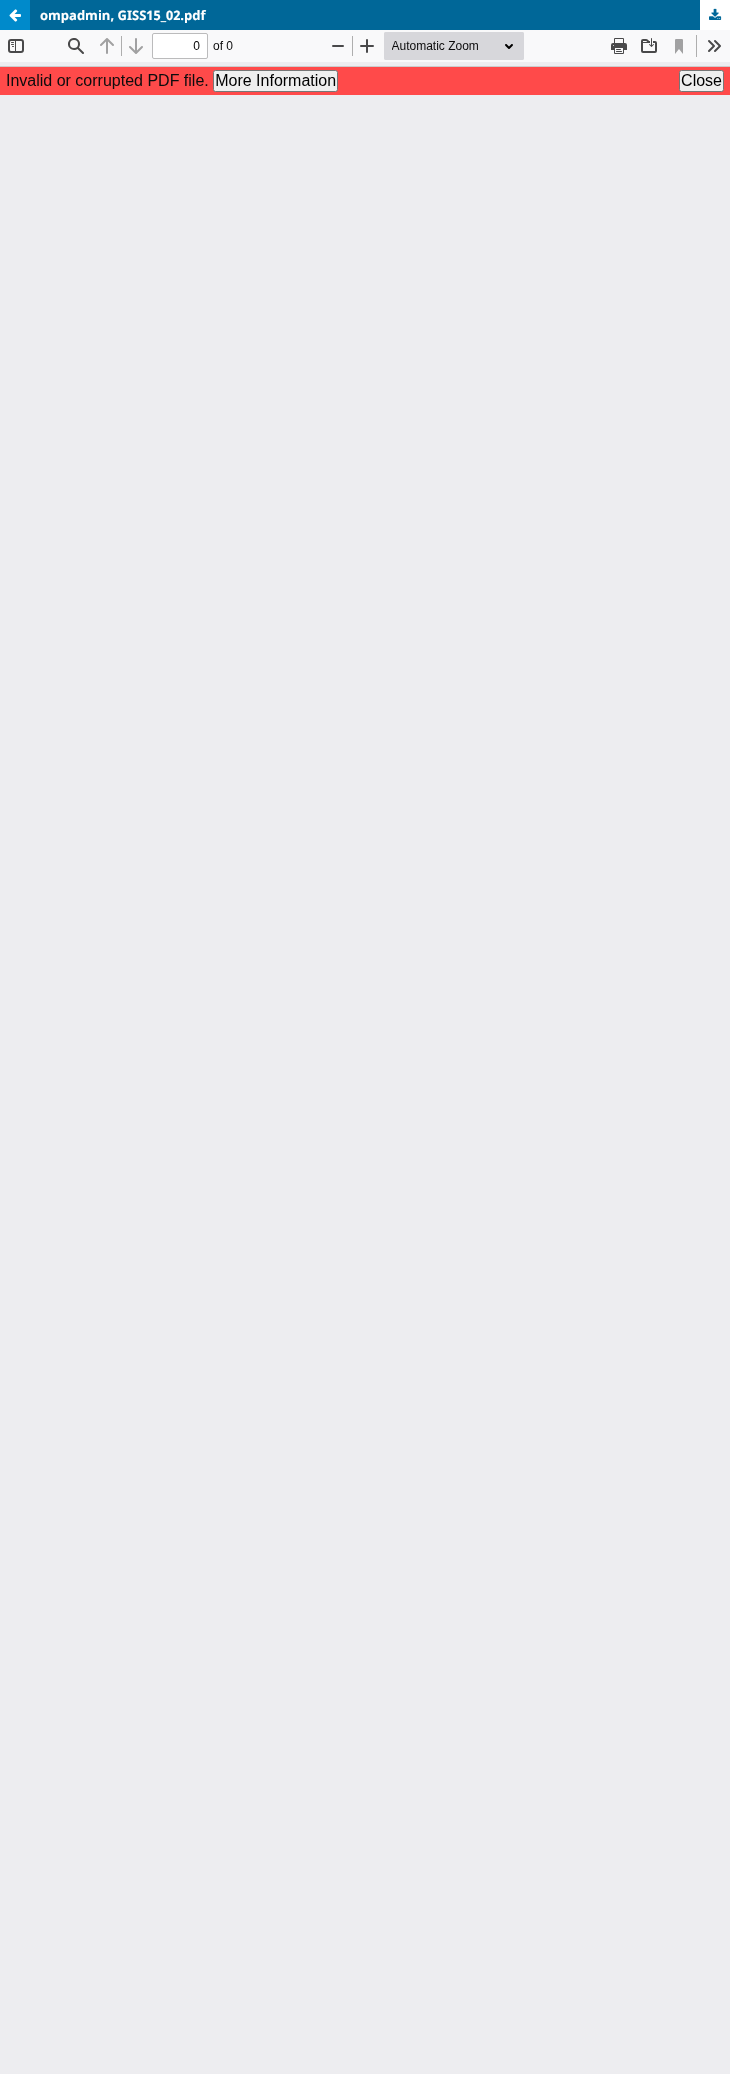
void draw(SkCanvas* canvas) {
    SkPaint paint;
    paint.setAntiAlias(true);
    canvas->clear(0xFFFFFFFF);
    paint.setColor(0xFF006798);
    canvas->drawRect(SkRect::MakeXYWH(30, 0, 670, 30), paint);
    paint.setColor(0xFF008ACB);
    canvas->drawRect(SkRect::MakeXYWH(0, 0, 30, 30), paint);
    canvas->drawImageRect(SkImages::DeferredFromEncodedData(SkData::MakeFromFileName("img1.png")), SkRect::MakeXYWH(9, 9, 12, 13), SkSamplingOptions());
    SkFont font1(fontMgr->matchFamilyStyle("Noto Sans", SkFontStyle::Bold()), 13);
    font1.setSubpixel(true);
    paint.setColor(0xFFFFFFFF);
    canvas->drawString("ompadmin, GISS15_02.pdf", 40, 20, font1, paint);
    canvas->drawImageRect(SkImages::DeferredFromEncodedData(SkData::MakeFromFileName("img2.png")), SkRect::MakeXYWH(709, 8, 13, 12), SkSamplingOptions());
    canvas->drawImageRect(SkImages::DeferredFromEncodedData(SkData::MakeFromFileName("img3.png")), SkRect::MakeXYWH(0, 30, 730, 2044), SkSamplingOptions());
}
